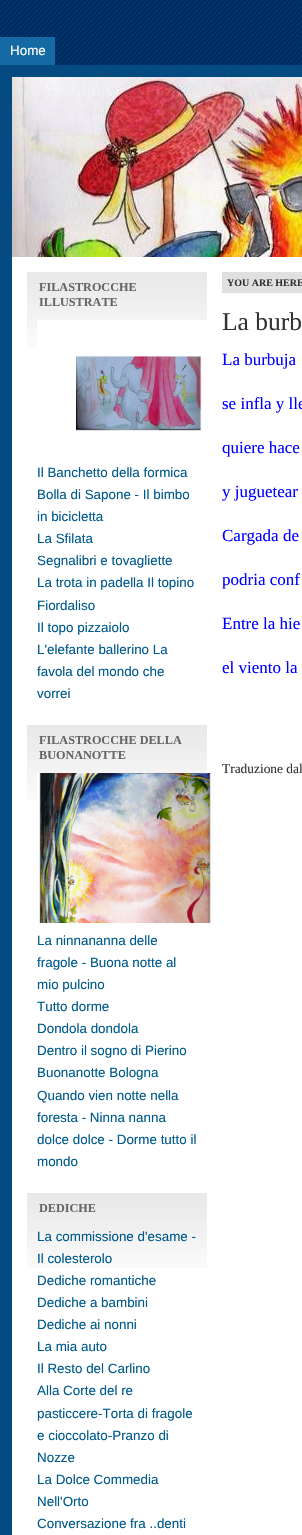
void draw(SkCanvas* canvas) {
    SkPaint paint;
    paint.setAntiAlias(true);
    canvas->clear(0xFFFFFFFF);
    canvas->drawImageRect(SkImages::DeferredFromEncodedData(SkData::MakeFromFileName("img1.png")), SkRect::MakeXYWH(0, 0, 302, 65), SkSamplingOptions());
    paint.setColor(0xFF156AA3);
    canvas->drawRect(SkRect::MakeXYWH(0, 37, 55, 28), paint);
    SkFont font1(fontMgr->matchFamilyStyle("Liberation Sans", SkFontStyle::Normal()), 13.4f);
    font1.setSubpixel(true);
    paint.setColor(0xFFFFFFFF);
    canvas->drawString("Home", 10, 55, font1, paint);
    paint.setStyle(SkPaint::kStroke_Style);
    paint.setStrokeWidth(12);
    paint.setColor(0xFF054B81);
    canvas->drawRect(SkRect::MakeXYWH(6, 71, 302, 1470), paint);
    canvas->drawImageRect(SkImages::DeferredFromEncodedData(SkData::MakeFromFileName("img2.png")), SkRect::MakeXYWH(12, 77, 290, 180), SkSamplingOptions());
    canvas->drawImageRect(SkImages::DeferredFromEncodedData(SkData::MakeFromFileName("img3.png")), SkRect::MakeXYWH(27, 272, 180, 75), SkSamplingOptions());
    SkFont font2(fontMgr->matchFamilyStyle("Liberation Serif", SkFontStyle::Bold()), 12.2f);
    font2.setSubpixel(true);
    paint.setStyle(SkPaint::kFill_Style);
    paint.setColor(0xFF666666);
    canvas->drawString("FILASTROCCHE", 39, 291, font2, paint);
    canvas->drawString("ILLUSTRATE", 39, 306, font2, paint);
    canvas->drawImageRect(SkImages::DeferredFromEncodedData(SkData::MakeFromFileName("img4.png")), SkRect::MakeXYWH(37, 320, 170, 111), SkSamplingOptions());
    paint.setColor(0xFF005A8C);
    canvas->drawString("Il Banchetto della formica", 37, 477, font1, paint);
    canvas->drawString("Bolla di Sapone - Il bimbo", 37, 499, font1, paint);
    canvas->drawString("in bicicletta", 37, 521, font1, paint);
    canvas->drawString("La Sfilata", 37, 543, font1, paint);
    canvas->drawString("Segnalibri e tovagliette", 37, 565, font1, paint);
    canvas->drawString("La trota in padella Il topino", 37, 587, font1, paint);
    canvas->drawString("Fiordaliso", 37, 610, font1, paint);
    canvas->drawString("Il topo pizzaiolo", 37, 632, font1, paint);
    canvas->drawString("L'elefante ballerino La", 37, 654, font1, paint);
    canvas->drawString("favola del mondo che", 37, 676, font1, paint);
    canvas->drawString("vorrei", 37, 698, font1, paint);
    canvas->drawImageRect(SkImages::DeferredFromEncodedData(SkData::MakeFromFileName("img3.png")), SkRect::MakeXYWH(27, 725, 180, 75), SkSamplingOptions());
    paint.setColor(0xFF666666);
    canvas->drawString("FILASTROCCHE DELLA", 39, 744, font2, paint);
    canvas->drawString("BUONANOTTE", 39, 759, font2, paint);
    canvas->drawImageRect(SkImages::DeferredFromEncodedData(SkData::MakeFromFileName("img5.png")), SkRect::MakeXYWH(37, 773, 174, 150), SkSamplingOptions());
    paint.setColor(0xFF005A8C);
    canvas->drawString("La ninnananna delle", 37, 945, font1, paint);
    canvas->drawString("fragole - Buona notte al", 37, 967, font1, paint);
    canvas->drawString("mio pulcino", 37, 989, font1, paint);
    canvas->drawString("Tutto dorme", 37, 1011, font1, paint);
    canvas->drawString("Dondola dondola", 37, 1033, font1, paint);
    canvas->drawString("Dentro il sogno di Pierino", 37, 1055, font1, paint);
    canvas->drawString("Buonanotte Bologna", 37, 1077, font1, paint);
    canvas->drawString("Quando vien notte nella", 37, 1100, font1, paint);
    canvas->drawString("foresta - Ninna nanna", 37, 1122, font1, paint);
    canvas->drawString("dolce dolce - Dorme tutto il", 37, 1144, font1, paint);
    canvas->drawString("mondo", 37, 1166, font1, paint);
    canvas->drawImageRect(SkImages::DeferredFromEncodedData(SkData::MakeFromFileName("img3.png")), SkRect::MakeXYWH(27, 1193, 180, 75), SkSamplingOptions());
    paint.setColor(0xFF666666);
    canvas->drawString("DEDICHE", 39, 1212, font2, paint);
    paint.setColor(0xFF005A8C);
    canvas->drawString("La commissione d'esame -", 37, 1241, font1, paint);
    canvas->drawString("Il colesterolo", 37, 1263, font1, paint);
    canvas->drawString("Dediche romantiche", 37, 1285, font1, paint);
    canvas->drawString("Dediche a bambini", 37, 1307, font1, paint);
    canvas->drawString("Dediche ai nonni", 37, 1329, font1, paint);
    canvas->drawString("La mia auto", 37, 1351, font1, paint);
    canvas->drawString("Il Resto del Carlino", 37, 1373, font1, paint);
    canvas->drawString("Alla Corte del re", 37, 1395, font1, paint);
    canvas->drawString("pasticcere-Torta di fragole", 37, 1418, font1, paint);
    canvas->drawString("e cioccolato-Pranzo di", 37, 1440, font1, paint);
    canvas->drawString("Nozze", 37, 1462, font1, paint);
    canvas->drawString("La Dolce Commedia", 37, 1484, font1, paint);
    canvas->drawString("Nell'Orto", 37, 1506, font1, paint);
    canvas->drawString("Conversazione fra ..denti", 37, 1528, font1, paint);
    paint.setColor(0xFFE1E0E0);
    canvas->drawRect(SkRect::MakeXYWH(222, 272, 80, 21), paint);
    SkFont font3(fontMgr->matchFamilyStyle("Liberation Serif", SkFontStyle::Bold()), 10);
    font3.setSubpixel(true);
    paint.setColor(0xFF333333);
    canvas->drawString("YOU ARE HERE", 227, 286, font3, paint);
    SkFont font4(fontMgr->matchFamilyStyle("Liberation Serif", SkFontStyle::Normal()), 25.5f);
    font4.setSubpixel(true);
    canvas->drawString("La burb", 222, 330, font4, paint);
    SkFont font5(fontMgr->matchFamilyStyle("Liberation Serif", SkFontStyle::Normal()), 17);
    font5.setSubpixel(true);
    paint.setColor(0xFF0000FF);
    canvas->drawString("La burbuja", 222, 365, font5, paint);
    canvas->drawString("se infla y lle", 222, 409, font5, paint);
    canvas->drawString("quiere hace", 222, 453, font5, paint);
    canvas->drawString("y juguetear", 222, 497, font5, paint);
    canvas->drawString("Cargada de", 222, 541, font5, paint);
    canvas->drawString("podria conf", 222, 585, font5, paint);
    canvas->drawString("Entre la hie", 222, 629, font5, paint);
    canvas->drawString("el viento la", 222, 673, font5, paint);
    SkFont font6(fontMgr->matchFamilyStyle("Liberation Serif", SkFontStyle::Normal()), 13.4f);
    font6.setSubpixel(true);
    paint.setColor(0xFF333333);
    canvas->drawString("Traduzione dal", 222, 773, font6, paint);
}
